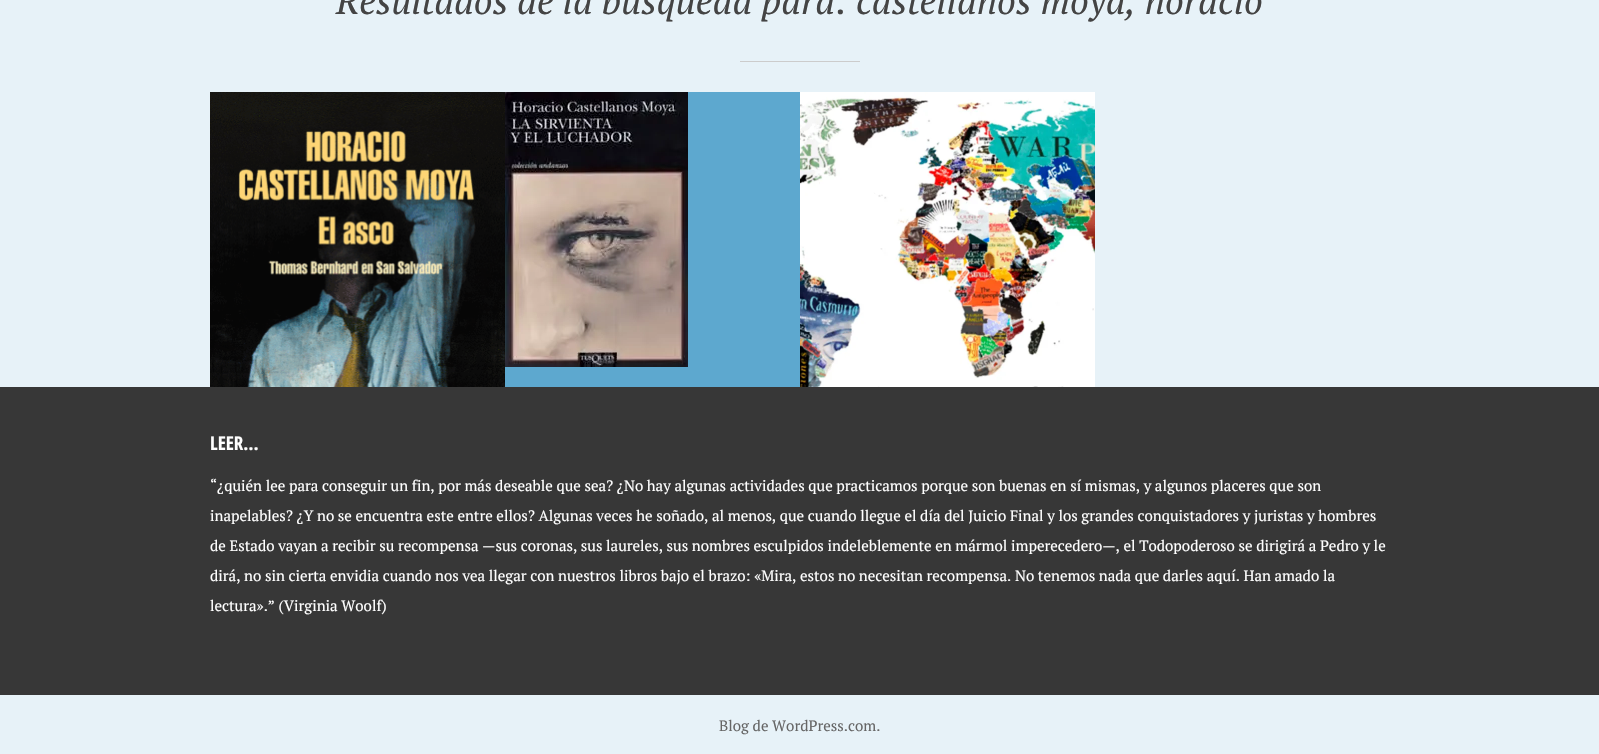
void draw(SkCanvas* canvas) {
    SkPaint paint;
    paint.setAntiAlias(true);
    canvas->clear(0xFFE7F2F8);
    SkFont font1(fontMgr->matchFamilyStyle("PT Serif", SkFontStyle::Italic()), 37);
    font1.setSubpixel(true);
    paint.setColor(0xFF444444);
    canvas->drawString("Resultados de la búsqueda para: castellanos moya, horacio", 336, 14, font1, paint);
    paint.setColor(0xFFCCCCCC);
    canvas->drawRect(SkRect::MakeXYWH(740, 61, 120, 1), paint);
    canvas->drawImageRect(SkImages::DeferredFromEncodedData(SkData::MakeFromFileName("img1.png")), SkRect::MakeXYWH(210, 92, 295, 295), SkSamplingOptions());
    paint.setColor(0xFF5DA8CF);
    canvas->drawRect(SkRect::MakeXYWH(505, 92, 295, 295), paint);
    canvas->drawImageRect(SkImages::DeferredFromEncodedData(SkData::MakeFromFileName("img2.png")), SkRect::MakeXYWH(505, 92, 183, 275), SkSamplingOptions());
    canvas->drawImageRect(SkImages::DeferredFromEncodedData(SkData::MakeFromFileName("img3.png")), SkRect::MakeXYWH(800, 92, 295, 295), SkSamplingOptions());
    paint.setColor(0xFF373737);
    canvas->drawRect(SkRect::MakeXYWH(0, 387, 1599, 308), paint);
    SkFont font2(fontMgr->matchFamilyStyle("Open Sans Condensed", SkFontStyle::Bold()), 19);
    font2.setSubpixel(true);
    paint.setColor(0xFFFFFFFF);
    canvas->drawString("LEER…", 210, 450, font2, paint);
    SkFont font3(fontMgr->matchFamilyStyle("PT Serif", SkFontStyle::Normal()), 15);
    font3.setSubpixel(true);
    canvas->drawString("“¿quién lee para conseguir un fin, por más deseable que sea? ¿No hay algunas actividades que practicamos porque son buenas en sí mismas, y algunos placeres que son", 210, 491, font3, paint);
    canvas->drawString("inapelables? ¿Y no se encuentra este entre ellos? Algunas veces he soñado, al menos, que cuando llegue el día del Juicio Final y los grandes conquistadores y juristas y hombres", 210, 521, font3, paint);
    canvas->drawString("de Estado vayan a recibir su recompensa —sus coronas, sus laureles, sus nombres esculpidos indeleblemente en mármol imperecedero—, el Todopoderoso se dirigirá a Pedro y le", 210, 551, font3, paint);
    canvas->drawString("dirá, no sin cierta envidia cuando nos vea llegar con nuestros libros bajo el brazo: «Mira, estos no necesitan recompensa. No tenemos nada que darles aquí. Han amado la", 210, 581, font3, paint);
    canvas->drawString("lectura».” (Virginia Woolf)", 210, 611, font3, paint);
    paint.setColor(0xFF666666);
    canvas->drawString("Blog de WordPress.com.", 719, 731, font3, paint);
}
